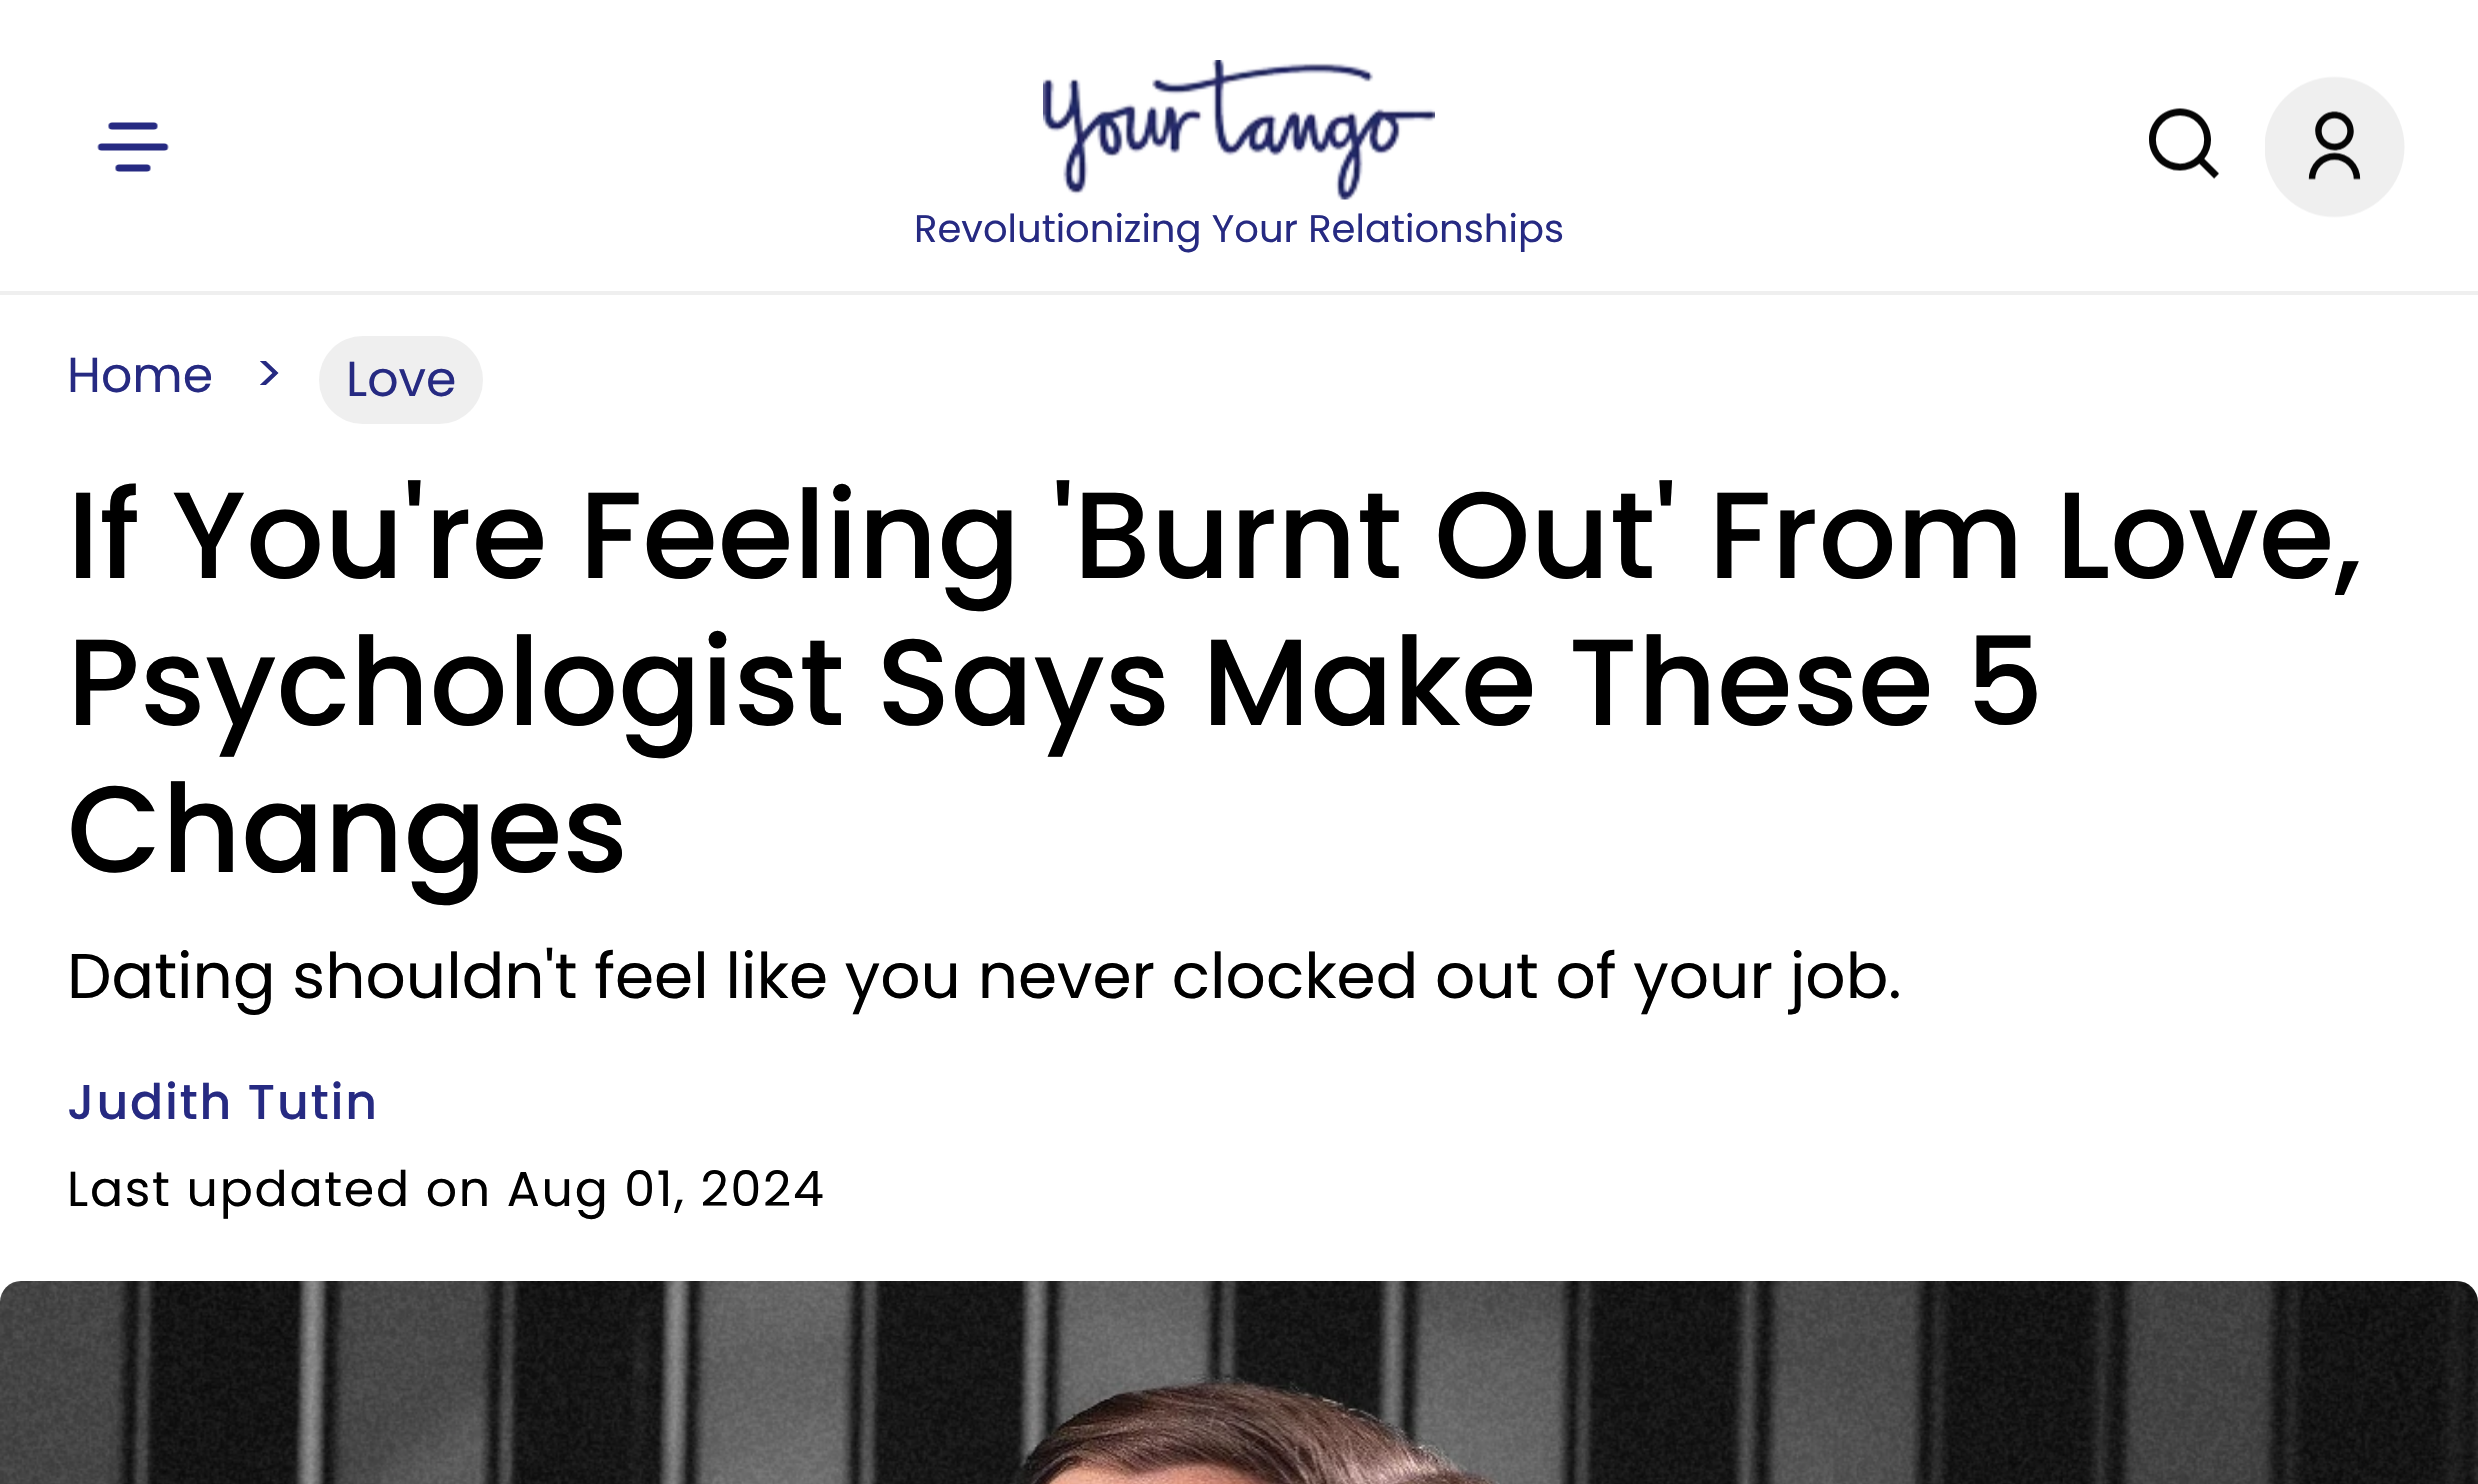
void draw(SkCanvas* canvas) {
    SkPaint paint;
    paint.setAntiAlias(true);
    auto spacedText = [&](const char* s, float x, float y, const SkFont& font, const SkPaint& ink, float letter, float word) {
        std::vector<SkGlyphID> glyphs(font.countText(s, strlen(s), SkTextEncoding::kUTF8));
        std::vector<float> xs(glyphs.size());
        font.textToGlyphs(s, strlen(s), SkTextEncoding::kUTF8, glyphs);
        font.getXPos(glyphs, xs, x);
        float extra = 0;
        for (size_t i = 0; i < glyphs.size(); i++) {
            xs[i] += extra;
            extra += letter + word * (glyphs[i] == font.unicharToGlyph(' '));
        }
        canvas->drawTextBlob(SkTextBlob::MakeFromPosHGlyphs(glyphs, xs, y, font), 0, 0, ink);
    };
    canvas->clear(0xFFFFFFFF);
    paint.setColor(0xFFEFEFEF);
    canvas->drawRect(SkRect::MakeXYWH(0, 291, 2478, 4), paint);
    canvas->drawImageRect(SkImages::DeferredFromEncodedData(SkData::MakeFromFileName("img1.png")), SkRect::MakeXYWH(97, 122, 72, 50), SkSamplingOptions());
    canvas->drawImageRect(SkImages::DeferredFromEncodedData(SkData::MakeFromFileName("img2.png")), SkRect::MakeXYWH(2149, 108, 70, 71), SkSamplingOptions());
    canvas->drawImageRect(SkImages::DeferredFromEncodedData(SkData::MakeFromFileName("img3.png")), SkRect::MakeXYWH(2265, 76, 140, 142), SkSamplingOptions());
    canvas->drawImageRect(SkImages::DeferredFromEncodedData(SkData::MakeFromFileName("img4.png")), SkRect::MakeXYWH(1043, 60, 392, 140), SkSamplingOptions());
    SkFont font1(fontMgr->matchFamilyStyle("Poppins", SkFontStyle::Normal()), 38.5f);
    font1.setSubpixel(true);
    paint.setColor(0xFF262A82);
    canvas->drawString("Revolutionizing Your Relationships", 914, 242, font1, paint);
    SkFont font2(fontMgr->matchFamilyStyle("Poppins", SkFontStyle::Normal()), 49);
    font2.setSubpixel(true);
    canvas->drawString("Home", 67, 392, font2, paint);
    SkFont font3(fontMgr->matchFamilyStyle("Poppins", SkFontStyle::Normal()), 52);
    font3.setSubpixel(true);
    canvas->drawString(">", 255, 392, font3, paint);
    paint.setColor(0xFFEFEFEF);
    canvas->drawRoundRect(SkRect::MakeXYWH(319, 336, 164, 88), 44, 44, paint);
    paint.setColor(0xFF262A82);
    canvas->drawString("Love", 346, 396, font2, paint);
    SkFont font4(fontMgr->matchFamilyStyle("Poppins", SkFontStyle(500, SkFontStyle::kNormal_Width, SkFontStyle::kUpright_Slant)), 122.5f);
    font4.setSubpixel(true);
    paint.setColor(0xFF000000);
    canvas->drawString("If You're Feeling 'Burnt Out' From Love,", 67, 578, font4, paint);
    canvas->drawString("Psychologist Says Make These 5", 67, 725, font4, paint);
    canvas->drawString("Changes", 67, 872, font4, paint);
    SkFont font5(fontMgr->matchFamilyStyle("Poppins", SkFontStyle::Normal()), 63);
    font5.setSubpixel(true);
    canvas->drawString("Dating shouldn't feel like you never clocked out of your job.", 67, 998, font5, paint);
    SkFont font6(fontMgr->matchFamilyStyle("Poppins", SkFontStyle(500, SkFontStyle::kNormal_Width, SkFontStyle::kUpright_Slant)), 49);
    font6.setSubpixel(true);
    paint.setColor(0xFF262A82);
    spacedText("Judith Tutin", 67, 1119, font6, paint, 1.75f, 0);
    paint.setColor(0xFF000000);
    spacedText("Last updated on Aug 01, 2024", 67, 1206, font2, paint, 1.75f, 0);
    canvas->drawImageRect(SkImages::DeferredFromEncodedData(SkData::MakeFromFileName("img5.png")), SkRect::MakeXYWH(0, 1281, 2478, 203), SkSamplingOptions());
}
